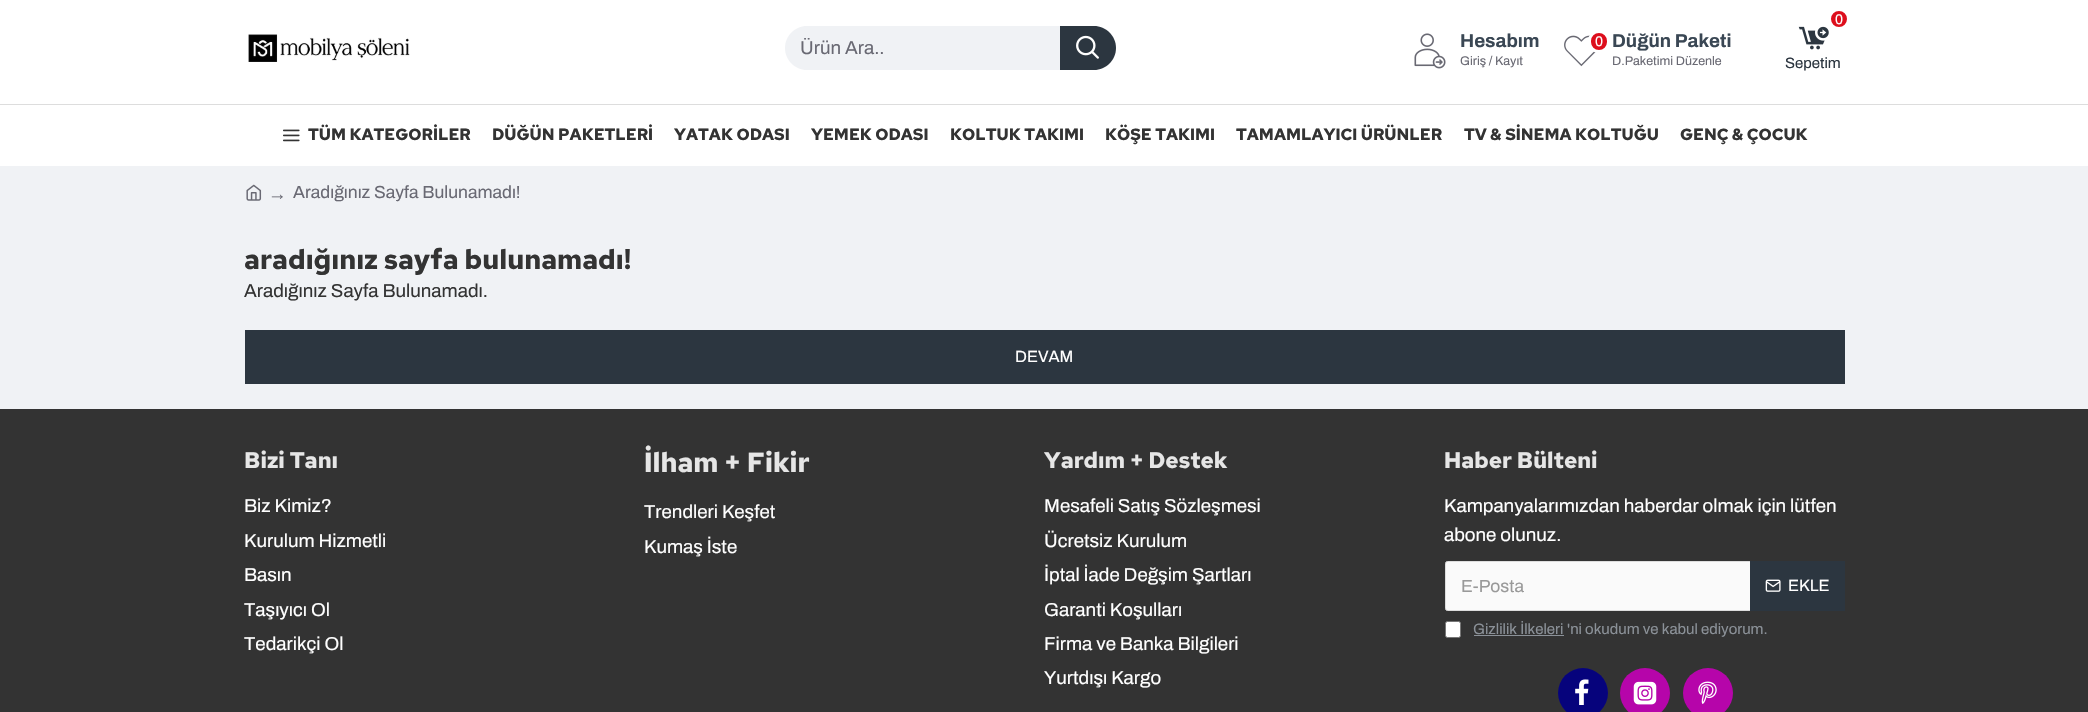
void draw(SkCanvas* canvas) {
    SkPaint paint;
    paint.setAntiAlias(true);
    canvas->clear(0xFFF0F2F5);
    paint.setColor(0xFFFFFFFF);
    canvas->drawRect(SkRect::MakeXYWH(0, 0, 2088, 166), paint);
    canvas->drawImageRect(SkImages::DeferredFromEncodedData(SkData::MakeFromFileName("img1.png")), SkRect::MakeXYWH(248, 34, 162, 28), SkSamplingOptions());
    paint.setColor(0xFFF0F2F5);
    canvas->drawPath(SkPathBuilder().moveTo(807, 26).lineTo(1060, 26).lineTo(1060, 70).lineTo(807, 70).cubicTo(795, 70, 785, 60, 785, 48).cubicTo(785, 36, 795, 26, 807, 26).close().detach(), paint);
    canvas->save();
    canvas->clipRect(SkRect::MakeXYWH(800, 38, 245, 20));
    SkFont font1(fontMgr->matchFamilyStyle("Archivo", SkFontStyle::Normal()), 18.75f);
    font1.setSubpixel(true);
    paint.setColor(0xFF696973);
    canvas->drawString("Ürün Ara..", 800, 54, font1, paint);
    canvas->restore();
    paint.setColor(0xFF2C3640);
    canvas->drawPath(SkPathBuilder().moveTo(1060, 26).lineTo(1094, 26).cubicTo(1106, 26, 1116, 36, 1116, 48).cubicTo(1116, 60, 1106, 70, 1094, 70).lineTo(1060, 70).close().detach(), paint);
    canvas->drawImageRect(SkImages::DeferredFromEncodedData(SkData::MakeFromFileName("img2.png")), SkRect::MakeXYWH(1076, 35, 23, 24), SkSamplingOptions());
    canvas->drawImageRect(SkImages::DeferredFromEncodedData(SkData::MakeFromFileName("img3.png")), SkRect::MakeXYWH(1414, 33, 32, 36), SkSamplingOptions());
    SkFont font2(fontMgr->matchFamilyStyle("Archivo", SkFontStyle::Bold()), 18.75f);
    font2.setSubpixel(true);
    paint.setColor(0xFF3A4754);
    canvas->drawString("Hesabım", 1460, 47, font2, paint);
    SkFont font3(fontMgr->matchFamilyStyle("Archivo", SkFontStyle::Normal()), 12.5f);
    font3.setSubpixel(true);
    paint.setColor(0xFF696973);
    canvas->drawString("Giriş / Kayıt", 1460, 65, font3, paint);
    canvas->drawImageRect(SkImages::DeferredFromEncodedData(SkData::MakeFromFileName("img4.png")), SkRect::MakeXYWH(1564, 35, 32, 32), SkSamplingOptions());
    paint.setColor(0xFFDD0E1C);
    canvas->drawRoundRect(SkRect::MakeXYWH(1589.5f, 31.5f, 19, 20), 9.5f, 9.5f, paint);
    paint.setStyle(SkPaint::kStroke_Style);
    paint.setStrokeWidth(3);
    paint.setColor(0xFFFFFFFF);
    canvas->drawRoundRect(SkRect::MakeXYWH(1589.5f, 31.5f, 19, 20), 9.5f, 9.5f, paint);
    SkFont font4(fontMgr->matchFamilyStyle("Archivo", SkFontStyle::Normal()), 14);
    font4.setSubpixel(true);
    paint.setStyle(SkPaint::kFill_Style);
    canvas->drawString("0", 1595, 46, font4, paint);
    paint.setColor(0xFF3A4754);
    canvas->drawString("Düğün Paketi", 1612, 47, font2, paint);
    paint.setColor(0xFF696973);
    canvas->drawString("D.Paketimi Düzenle", 1612, 65, font3, paint);
    canvas->drawImageRect(SkImages::DeferredFromEncodedData(SkData::MakeFromFileName("img5.png")), SkRect::MakeXYWH(1798, 26, 31, 24), SkSamplingOptions());
    paint.setColor(0xFFDD0E1C);
    canvas->drawCircle(1839, 19, 9.5f, paint);
    paint.setStyle(SkPaint::kStroke_Style);
    paint.setColor(0xFFFFFFFF);
    canvas->drawCircle(1839, 19, 9.5f, paint);
    paint.setStyle(SkPaint::kFill_Style);
    canvas->drawString("0", 1835, 24, font4, paint);
    SkFont font5(fontMgr->matchFamilyStyle("Archivo", SkFontStyle::Normal()), 15);
    font5.setSubpixel(true);
    paint.setColor(0xFF2C3640);
    canvas->drawString("Sepetim", 1785, 68, font5, paint);
    paint.setColor(0xFFDDDDDD);
    canvas->drawRect(SkRect::MakeXYWH(0, 104, 2088, 1), paint);
    canvas->drawImageRect(SkImages::DeferredFromEncodedData(SkData::MakeFromFileName("img6.png")), SkRect::MakeXYWH(283, 129, 17, 13), SkSamplingOptions());
    SkFont font6(fontMgr->matchFamilyStyle("Red Hat Text", SkFontStyle::Bold()), 16.25f);
    font6.setSubpixel(true);
    paint.setColor(0xFF333333);
    canvas->drawString("TÜM KATEGORİLER", 308, 140, font6, paint);
    canvas->drawString("DÜĞÜN PAKETLERİ", 492, 140, font6, paint);
    canvas->drawString("YATAK ODASI", 674, 140, font6, paint);
    canvas->drawString("YEMEK ODASI", 811, 140, font6, paint);
    canvas->drawString("KOLTUK TAKIMI", 950, 140, font6, paint);
    canvas->drawString("KÖŞE TAKIMI", 1105, 140, font6, paint);
    canvas->drawString("TAMAMLAYICI ÜRÜNLER", 1236, 140, font6, paint);
    canvas->drawString("TV & SİNEMA KOLTUĞU", 1464, 140, font6, paint);
    canvas->drawString("GENÇ & ÇOCUK", 1680, 140, font6, paint);
    canvas->drawImageRect(SkImages::DeferredFromEncodedData(SkData::MakeFromFileName("img7.png")), SkRect::MakeXYWH(246, 184, 16, 17), SkSamplingOptions());
    SkFont font7(fontMgr->matchFamilyStyle("Liberation Serif", SkFontStyle::Normal()), 18.75f);
    font7.setSubpixel(true);
    paint.setColor(0xFF696973);
    canvas->drawString("→", 268, 200, font7, paint);
    SkFont font8(fontMgr->matchFamilyStyle("Archivo", SkFontStyle::Normal()), 17.5f);
    font8.setSubpixel(true);
    canvas->drawString("Aradığınız Sayfa Bulunamadı!", 293, 198, font8, paint);
    SkFont font9(fontMgr->matchFamilyStyle("Red Hat Text", SkFontStyle::Bold()), 27.5f);
    font9.setSubpixel(true);
    paint.setColor(0xFF333333);
    canvas->drawString("aradığınız sayfa bulunamadı!", 244, 269, font9, paint);
    canvas->drawString("Aradığınız Sayfa Bulunamadı.", 244, 297, font1, paint);
    paint.setColor(0xFF2C3640);
    canvas->drawRect(SkRect::MakeXYWH(245, 330, 1600, 54), paint);
    SkFont font10(fontMgr->matchFamilyStyle("Archivo", SkFontStyle::Normal()), 16.25f);
    font10.setSubpixel(true);
    paint.setColor(0xFFFFFFFF);
    canvas->drawString("DEVAM", 1015, 362, font10, paint);
    paint.setColor(0xFF333333);
    canvas->drawRect(SkRect::MakeXYWH(0, 409, 2088, 303), paint);
    SkFont font11(fontMgr->matchFamilyStyle("Red Hat Text", SkFontStyle::Bold()), 22.5f);
    font11.setSubpixel(true);
    paint.setColor(0xFFE6E6E6);
    canvas->drawString("Bizi Tanı", 244, 468, font11, paint);
    paint.setColor(0xFFFFFFFF);
    canvas->drawString("Biz Kimiz?", 244, 512, font1, paint);
    canvas->drawString("Kurulum Hizmetli", 244, 547, font1, paint);
    canvas->drawString("Basın", 244, 581, font1, paint);
    canvas->drawString("Taşıyıcı Ol", 244, 616, font1, paint);
    canvas->drawString("Tedarikçi Ol", 244, 650, font1, paint);
    paint.setColor(0xFFE6E6E6);
    canvas->drawString("İlham + Fikir", 644, 472, font9, paint);
    paint.setColor(0xFFFFFFFF);
    canvas->drawString("Trendleri Keşfet", 644, 518, font1, paint);
    canvas->drawString("Kumaş İste", 644, 553, font1, paint);
    paint.setColor(0xFFE6E6E6);
    canvas->drawString("Yardım + Destek", 1044, 468, font11, paint);
    paint.setColor(0xFFFFFFFF);
    canvas->drawString("Mesafeli Satış Sözleşmesi", 1044, 512, font1, paint);
    canvas->drawString("Ücretsiz Kurulum", 1044, 547, font1, paint);
    canvas->drawString("İptal İade Değşim Şartları", 1044, 581, font1, paint);
    canvas->drawString("Garanti Koşulları", 1044, 616, font1, paint);
    canvas->drawString("Firma ve Banka Bilgileri", 1044, 650, font1, paint);
    canvas->drawString("Yurtdışı Kargo", 1044, 684, font1, paint);
    paint.setColor(0xFFE6E6E6);
    canvas->drawString("Haber Bülteni", 1444, 468, font11, paint);
    paint.setColor(0xFFFFFFFF);
    canvas->drawString("Kampanyalarımızdan haberdar olmak için lütfen", 1444, 512, font1, paint);
    canvas->drawString("abone olunuz.", 1444, 541, font1, paint);
    paint.setColor(0xFFFAFAFA);
    canvas->drawRoundRect(SkRect::MakeXYWH(1445.5f, 561.5f, 399, 49), 2, 2, paint);
    paint.setStyle(SkPaint::kStroke_Style);
    paint.setStrokeWidth(1);
    paint.setColor(0xFFDDDDDD);
    canvas->drawRoundRect(SkRect::MakeXYWH(1445.5f, 561.5f, 399, 49), 2, 2, paint);
    paint.setStyle(SkPaint::kFill_Style);
    paint.setColor(0xFF999999);
    canvas->drawString("E-Posta", 1461, 592, font8, paint);
    paint.setColor(0xFF2C3640);
    canvas->drawRect(SkRect::MakeXYWH(1750, 561, 95, 50), paint);
    canvas->drawImageRect(SkImages::DeferredFromEncodedData(SkData::MakeFromFileName("img8.png")), SkRect::MakeXYWH(1765, 579, 16, 13), SkSamplingOptions());
    paint.setColor(0xFFFFFFFF);
    canvas->drawString("EKLE", 1788, 591, font10, paint);
    canvas->drawRoundRect(SkRect::MakeXYWH(1445.5f, 621.5f, 15, 16), 2, 2, paint);
    paint.setStyle(SkPaint::kStroke_Style);
    paint.setColor(0xFF767676);
    canvas->drawRoundRect(SkRect::MakeXYWH(1445.5f, 621.5f, 15, 16), 2, 2, paint);
    paint.setStyle(SkPaint::kFill_Style);
    paint.setColor(0xFF8B9198);
    canvas->drawString("Gizlilik İlkeleri", 1473, 634, font5, paint);
    canvas->drawRect(SkRect::MakeXYWH(1474, 635, 90, 1), paint);
    canvas->drawString("'ni okudum ve kabul ediyorum.", 1567, 634, font5, paint);
    paint.setColor(0xFF06037C);
    canvas->drawCircle(1583, 693, 25, paint);
    canvas->drawImageRect(SkImages::DeferredFromEncodedData(SkData::MakeFromFileName("img9.png")), SkRect::MakeXYWH(1575, 679, 14, 26), SkSamplingOptions());
    paint.setColor(0xFFB605AA);
    canvas->drawCircle(1645, 693, 25, paint);
    canvas->drawImageRect(SkImages::DeferredFromEncodedData(SkData::MakeFromFileName("img10.png")), SkRect::MakeXYWH(1633, 681, 24, 24), SkSamplingOptions());
    canvas->drawCircle(1708, 693, 25, paint);
    canvas->drawImageRect(SkImages::DeferredFromEncodedData(SkData::MakeFromFileName("img11.png")), SkRect::MakeXYWH(1698, 681, 19, 23), SkSamplingOptions());
}
